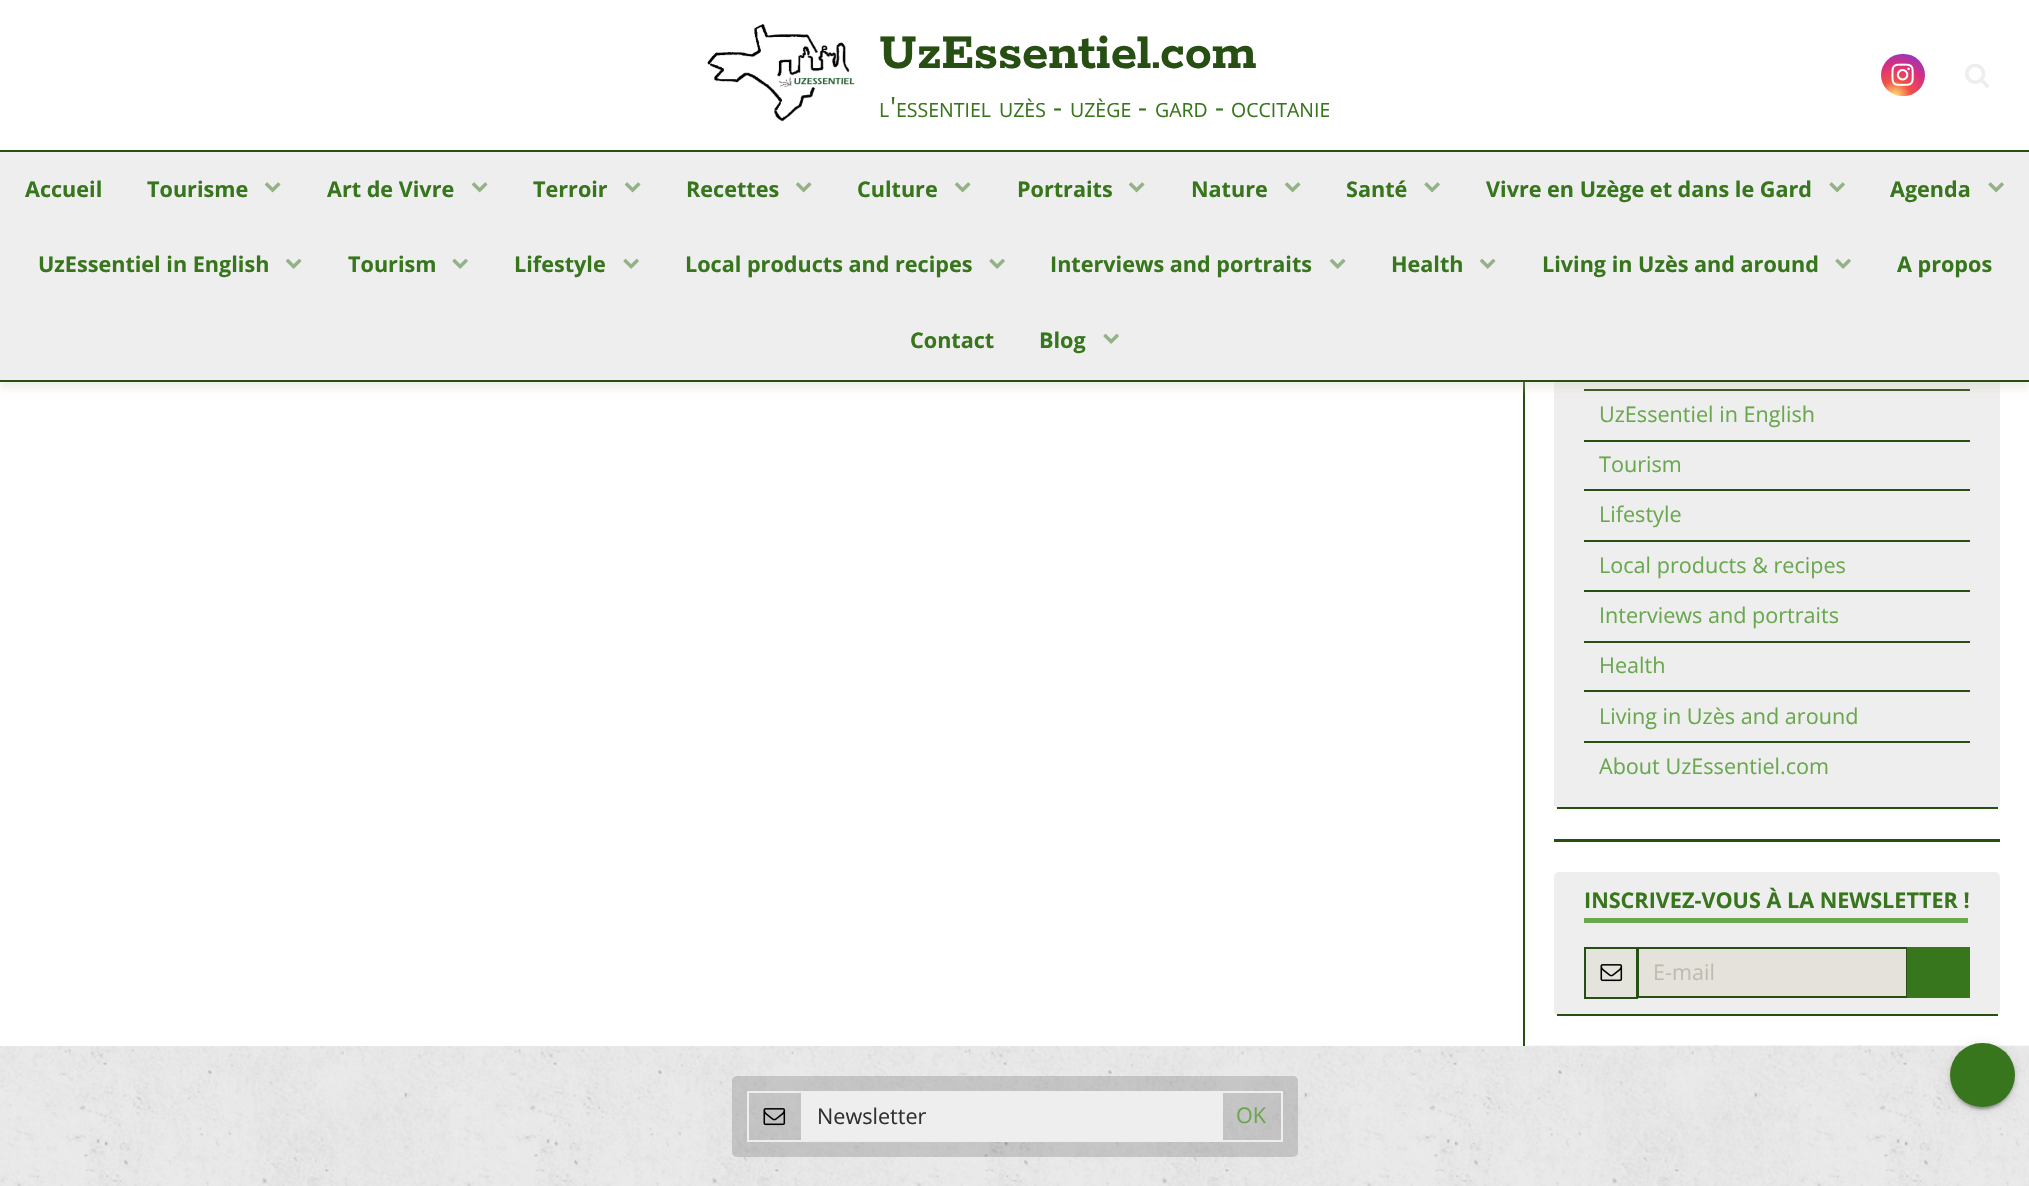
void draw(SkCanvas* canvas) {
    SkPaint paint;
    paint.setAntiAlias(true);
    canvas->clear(0xFFFFFFFF);
    paint.setColor(0xFFEEEEEE);
    canvas->drawRect(SkRect::MakeXYWH(0, 1046, 2029, 140), paint);
    canvas->drawImageRect(SkImages::DeferredFromEncodedData(SkData::MakeFromFileName("img9.png")), SkRect::MakeXYWH(0, 1045, 2029, 141), SkSamplingOptions());
    paint.setColor(0xFF274E13);
    canvas->drawRect(SkRect::MakeXYWH(1523, 382, 2, 664), paint);
    paint.setColor(0xFFEEEEEE);
    canvas->drawRoundRect(SkRect::MakeXYWH(1554, -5, 446, 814), 5, 5, paint);
    paint.setColor(0xFF274E13);
    canvas->drawRect(SkRect::MakeXYWH(1584, 389, 386, 2), paint);
    paint.setColor(0x4DCDC8B1);
    paint.setMaskFilter(SkMaskFilter::MakeBlur(kNormal_SkBlurStyle, 4));
    canvas->drawRect(SkRect::MakeXYWH(0, 159, 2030, 230), paint);
    paint.setMaskFilter(nullptr);
    paint.setColor(0xFFFFFFFF);
    canvas->drawRect(SkRect::MakeXYWH(1554, 0, 446, 150), paint);
    paint.setColor(0xFF274E13);
    canvas->drawRect(SkRect::MakeXYWH(0, 150, 2029, 2), paint);
    canvas->drawImageRect(SkImages::DeferredFromEncodedData(SkData::MakeFromFileName("img1.png")), SkRect::MakeXYWH(707, 24, 148, 98), SkSamplingOptions());
    SkFont font1(fontMgr->matchFamilyStyle("Rokkitt", SkFontStyle::Bold()), 54);
    font1.setSubpixel(true);
    canvas->drawString("UzEssentiel.com", 879, 68, font1, paint);
    SkFont font2(fontMgr->matchFamilyStyle("Open Sans", SkFontStyle::Normal()), 19.5f);
    font2.setSubpixel(true);
    paint.setColor(0xFF38761D);
    canvas->drawString("L", 879, 117, font2, paint);
    SkFont font3(fontMgr->matchFamilyStyle("Open Sans", SkFontStyle::Normal()), 28);
    font3.setSubpixel(true);
    canvas->drawString("'", 890, 117, font3, paint);
    canvas->drawString("ESSENTIEL", 896, 117, font2, paint);
    canvas->drawString("UZÈS", 999, 117, font2, paint);
    canvas->drawString("-", 1053, 117, font3, paint);
    canvas->drawString("UZÈGE", 1070, 117, font2, paint);
    canvas->drawString("-", 1138, 117, font3, paint);
    canvas->drawString("GARD", 1155, 117, font2, paint);
    canvas->drawString("-", 1215, 117, font3, paint);
    canvas->save();
    canvas->clipRect(SkRect::MakeXYWH(879, 87, 450, 41));
    canvas->drawString("OCCITANIE", 1231, 117, font2, paint);
    canvas->restore();
    {
        const SkColor colors[] = {0xFFFED373, 0xFFF15245, 0xFFD92E7F, 0xFF9B36B7, 0xFF515ECF};
        const float stops[] = {0.04f, 0.3f, 0.62f, 0.85f, 1};
        paint.setShader(SkGradientShader::MakeRadial({1895, 96}, 51, colors, stops, 5, SkTileMode::kClamp));
        paint.setAlpha(255);
    }
    canvas->drawRoundRect(SkRect::MakeXYWH(1881, 54, 44, 42), 21, 21, paint);
    canvas->drawImageRect(SkImages::DeferredFromEncodedData(SkData::MakeFromFileName("img2.png")), SkRect::MakeXYWH(1891, 63, 23, 23), SkSamplingOptions());
    canvas->drawImageRect(SkImages::DeferredFromEncodedData(SkData::MakeFromFileName("img3.png")), SkRect::MakeXYWH(1965, 63, 24, 25), SkSamplingOptions());
    paint.setShader(nullptr);
    paint.setColor(0xFFEEEEEE);
    canvas->drawRect(SkRect::MakeXYWH(0, 152, 2029, 228), paint);
    paint.setColor(0xFF274E13);
    canvas->drawRect(SkRect::MakeXYWH(0, 380, 2029, 2), paint);
    SkFont font4(fontMgr->matchFamilyStyle("Open Sans", SkFontStyle::Bold()), 21.6f);
    font4.setSubpixel(true);
    paint.setColor(0xFF38761D);
    canvas->drawString("Accueil", 25, 197, font4, paint);
    canvas->drawString("Tourisme", 147, 197, font4, paint);
    canvas->drawImageRect(SkImages::DeferredFromEncodedData(SkData::MakeFromFileName("img4.png")), SkRect::MakeXYWH(264, 182, 17, 11), SkSamplingOptions());
    canvas->drawString("Art de Vivre", 327, 197, font4, paint);
    canvas->drawImageRect(SkImages::DeferredFromEncodedData(SkData::MakeFromFileName("img4.png")), SkRect::MakeXYWH(471, 182, 17, 11), SkSamplingOptions());
    canvas->drawString("Terroir", 533, 197, font4, paint);
    canvas->drawImageRect(SkImages::DeferredFromEncodedData(SkData::MakeFromFileName("img4.png")), SkRect::MakeXYWH(624, 182, 17, 11), SkSamplingOptions());
    canvas->drawString("Recettes", 686, 197, font4, paint);
    canvas->drawImageRect(SkImages::DeferredFromEncodedData(SkData::MakeFromFileName("img4.png")), SkRect::MakeXYWH(795, 182, 17, 11), SkSamplingOptions());
    canvas->drawString("Culture", 857, 197, font4, paint);
    canvas->drawImageRect(SkImages::DeferredFromEncodedData(SkData::MakeFromFileName("img4.png")), SkRect::MakeXYWH(954, 182, 17, 11), SkSamplingOptions());
    canvas->drawString("Portraits", 1017, 197, font4, paint);
    canvas->drawImageRect(SkImages::DeferredFromEncodedData(SkData::MakeFromFileName("img4.png")), SkRect::MakeXYWH(1128, 182, 17, 11), SkSamplingOptions());
    canvas->drawString("Nature", 1191, 197, font4, paint);
    canvas->drawImageRect(SkImages::DeferredFromEncodedData(SkData::MakeFromFileName("img4.png")), SkRect::MakeXYWH(1284, 182, 17, 11), SkSamplingOptions());
    canvas->drawString("Santé", 1346, 197, font4, paint);
    canvas->drawImageRect(SkImages::DeferredFromEncodedData(SkData::MakeFromFileName("img5.png")), SkRect::MakeXYWH(1424, 182, 16, 11), SkSamplingOptions());
    canvas->drawString("Vivre en Uzège et dans le Gard", 1486, 197, font4, paint);
    canvas->drawImageRect(SkImages::DeferredFromEncodedData(SkData::MakeFromFileName("img5.png")), SkRect::MakeXYWH(1829, 182, 16, 11), SkSamplingOptions());
    canvas->drawString("Agenda", 1890, 197, font4, paint);
    canvas->drawImageRect(SkImages::DeferredFromEncodedData(SkData::MakeFromFileName("img5.png")), SkRect::MakeXYWH(1988, 182, 16, 11), SkSamplingOptions());
    canvas->drawString("UzEssentiel in English", 38, 272, font4, paint);
    canvas->drawImageRect(SkImages::DeferredFromEncodedData(SkData::MakeFromFileName("img6.png")), SkRect::MakeXYWH(286, 258, 16, 11), SkSamplingOptions());
    canvas->drawString("Tourism", 348, 272, font4, paint);
    canvas->drawImageRect(SkImages::DeferredFromEncodedData(SkData::MakeFromFileName("img7.png")), SkRect::MakeXYWH(452, 258, 16, 11), SkSamplingOptions());
    canvas->drawString("Lifestyle", 514, 272, font4, paint);
    canvas->drawImageRect(SkImages::DeferredFromEncodedData(SkData::MakeFromFileName("img7.png")), SkRect::MakeXYWH(623, 258, 16, 11), SkSamplingOptions());
    canvas->drawString("Local products and recipes", 685, 272, font4, paint);
    canvas->drawImageRect(SkImages::DeferredFromEncodedData(SkData::MakeFromFileName("img7.png")), SkRect::MakeXYWH(989, 258, 16, 11), SkSamplingOptions());
    canvas->drawString("Interviews and portraits", 1050, 272, font4, paint);
    canvas->drawImageRect(SkImages::DeferredFromEncodedData(SkData::MakeFromFileName("img6.png")), SkRect::MakeXYWH(1330, 258, 16, 11), SkSamplingOptions());
    canvas->drawString("Health", 1391, 272, font4, paint);
    canvas->drawImageRect(SkImages::DeferredFromEncodedData(SkData::MakeFromFileName("img6.png")), SkRect::MakeXYWH(1480, 258, 16, 11), SkSamplingOptions());
    canvas->drawString("Living in Uzès and around", 1542, 272, font4, paint);
    canvas->drawImageRect(SkImages::DeferredFromEncodedData(SkData::MakeFromFileName("img7.png")), SkRect::MakeXYWH(1835, 258, 16, 11), SkSamplingOptions());
    canvas->drawString("A propos", 1897, 272, font4, paint);
    canvas->drawString("Contact", 910, 348, font4, paint);
    canvas->drawString("Blog", 1039, 348, font4, paint);
    canvas->drawImageRect(SkImages::DeferredFromEncodedData(SkData::MakeFromFileName("img7.png")), SkRect::MakeXYWH(1103, 333, 16, 11), SkSamplingOptions());
    paint.setColor(0xFF274E13);
    canvas->drawRect(SkRect::MakeXYWH(1557, 807, 441, 2), paint);
    canvas->drawRect(SkRect::MakeXYWH(1584, 440, 386, 2), paint);
    SkFont font5(fontMgr->matchFamilyStyle("Open Sans", SkFontStyle::Normal()), 21.6f);
    font5.setSubpixel(true);
    paint.setColor(0xFF6AA84F);
    canvas->drawString("UzEssentiel in English", 1599, 422, font5, paint);
    paint.setColor(0xFF274E13);
    canvas->drawRect(SkRect::MakeXYWH(1584, 489, 386, 2), paint);
    paint.setColor(0xFF6AA84F);
    canvas->drawString("Tourism", 1599, 472, font5, paint);
    paint.setColor(0xFF274E13);
    canvas->drawRect(SkRect::MakeXYWH(1584, 540, 386, 2), paint);
    paint.setColor(0xFF6AA84F);
    canvas->drawString("Lifestyle", 1599, 522, font5, paint);
    paint.setColor(0xFF274E13);
    canvas->drawRect(SkRect::MakeXYWH(1584, 590, 386, 2), paint);
    paint.setColor(0xFF6AA84F);
    canvas->drawString("Local products & recipes", 1599, 573, font5, paint);
    paint.setColor(0xFF274E13);
    canvas->drawRect(SkRect::MakeXYWH(1584, 641, 386, 2), paint);
    paint.setColor(0xFF6AA84F);
    canvas->drawString("Interviews and portraits", 1599, 623, font5, paint);
    paint.setColor(0xFF274E13);
    canvas->drawRect(SkRect::MakeXYWH(1584, 690, 386, 2), paint);
    paint.setColor(0xFF6AA84F);
    canvas->drawString("Health", 1599, 673, font5, paint);
    paint.setColor(0xFF274E13);
    canvas->drawRect(SkRect::MakeXYWH(1584, 741, 386, 2), paint);
    paint.setColor(0xFF6AA84F);
    canvas->drawString("Living in Uzès and around", 1599, 724, font5, paint);
    canvas->drawString("About UzEssentiel.com", 1599, 774, font5, paint);
    paint.setColor(0xFF274E13);
    canvas->drawRect(SkRect::MakeXYWH(1554, 839, 446, 3), paint);
    paint.setColor(0xFFEEEEEE);
    canvas->drawRoundRect(SkRect::MakeXYWH(1554, 872, 446, 144), 5, 5, paint);
    paint.setColor(0xFF274E13);
    canvas->drawRect(SkRect::MakeXYWH(1557, 1014, 441, 2), paint);
    paint.setColor(0xFF38761D);
    canvas->drawString("INSCRIVEZ-VOUS À LA NEWSLETTER !", 1584, 908, font4, paint);
    paint.setColor(0xFF6AA84F);
    canvas->drawRect(SkRect::MakeXYWH(1584, 918, 384, 5), paint);
    paint.setColor(0xFFE4E3DC);
    canvas->drawRect(SkRect::MakeXYWH(1585, 948, 52, 50), paint);
    paint.setStyle(SkPaint::kStroke_Style);
    paint.setStrokeWidth(2);
    paint.setColor(0xFF274E13);
    canvas->drawRect(SkRect::MakeXYWH(1585, 948, 52, 50), paint);
    canvas->drawImageRect(SkImages::DeferredFromEncodedData(SkData::MakeFromFileName("img8.png")), SkRect::MakeXYWH(1600, 964, 23, 18), SkSamplingOptions());
    paint.setStyle(SkPaint::kFill_Style);
    paint.setColor(0x4DCDC8B1);
    canvas->drawRect(SkRect::MakeXYWH(1638, 948, 269, 49), paint);
    paint.setStyle(SkPaint::kStroke_Style);
    paint.setColor(0xFF274E13);
    canvas->drawRect(SkRect::MakeXYWH(1638, 948, 269, 49), paint);
    paint.setStyle(SkPaint::kFill_Style);
    paint.setColor(0xFFBFBCAF);
    canvas->drawString("E-mail", 1653, 980, font5, paint);
    paint.setColor(0xFF38761D);
    canvas->drawRect(SkRect::MakeXYWH(1907, 947, 63, 51), paint);
    paint.setColor(0xFFFFFFFF);
    canvas->drawRect(SkRect::MakeXYWH(0, 1045, 1523, 1), paint);
    paint.setColor(0x26000000);
    canvas->drawRoundRect(SkRect::MakeXYWH(732, 1076, 566, 81), 5, 5, paint);
    paint.setStyle(SkPaint::kStroke_Style);
    paint.setColor(0xFFEEEEEE);
    canvas->drawRect(SkRect::MakeXYWH(748, 1092, 54, 49), paint);
    canvas->drawImageRect(SkImages::DeferredFromEncodedData(SkData::MakeFromFileName("img10.png")), SkRect::MakeXYWH(763, 1108, 23, 18), SkSamplingOptions());
    paint.setStyle(SkPaint::kFill_Style);
    canvas->drawRect(SkRect::MakeXYWH(803, 1091, 420, 51), paint);
    paint.setColor(0xFF303030);
    canvas->drawString("Newsletter", 817, 1124, font5, paint);
    paint.setColor(0xFFEEEEEE);
    canvas->drawRect(SkRect::MakeXYWH(1221, 1091, 62, 2), paint);
    canvas->drawRect(SkRect::MakeXYWH(1281, 1091, 2, 51), paint);
    canvas->drawRect(SkRect::MakeXYWH(1221, 1140, 62, 2), paint);
    paint.setColor(0xFF6AA84F);
    canvas->drawString("OK", 1236, 1123, font5, paint);
    paint.setColor(0x1F000000);
    paint.setMaskFilter(SkMaskFilter::MakeBlur(kNormal_SkBlurStyle, 4));
    canvas->drawRoundRect(SkRect::MakeXYWH(1950, 1044, 65, 65), 32.5f, 32.5f, paint);
    paint.setMaskFilter(nullptr);
    paint.setColor(0x33000000);
    paint.setMaskFilter(SkMaskFilter::MakeBlur(kNormal_SkBlurStyle, 1));
    canvas->drawRoundRect(SkRect::MakeXYWH(1953, 1050, 59, 59), 29.5f, 29.5f, paint);
    paint.setMaskFilter(nullptr);
    paint.setColor(0x24000000);
    paint.setMaskFilter(SkMaskFilter::MakeBlur(kNormal_SkBlurStyle, 1.5f));
    canvas->drawRoundRect(SkRect::MakeXYWH(1950, 1046, 65, 64), 32, 32, paint);
    paint.setMaskFilter(nullptr);
    paint.setColor(0xFF38761D);
    canvas->drawRoundRect(SkRect::MakeXYWH(1950, 1043, 65, 64), 32, 32, paint);
}
